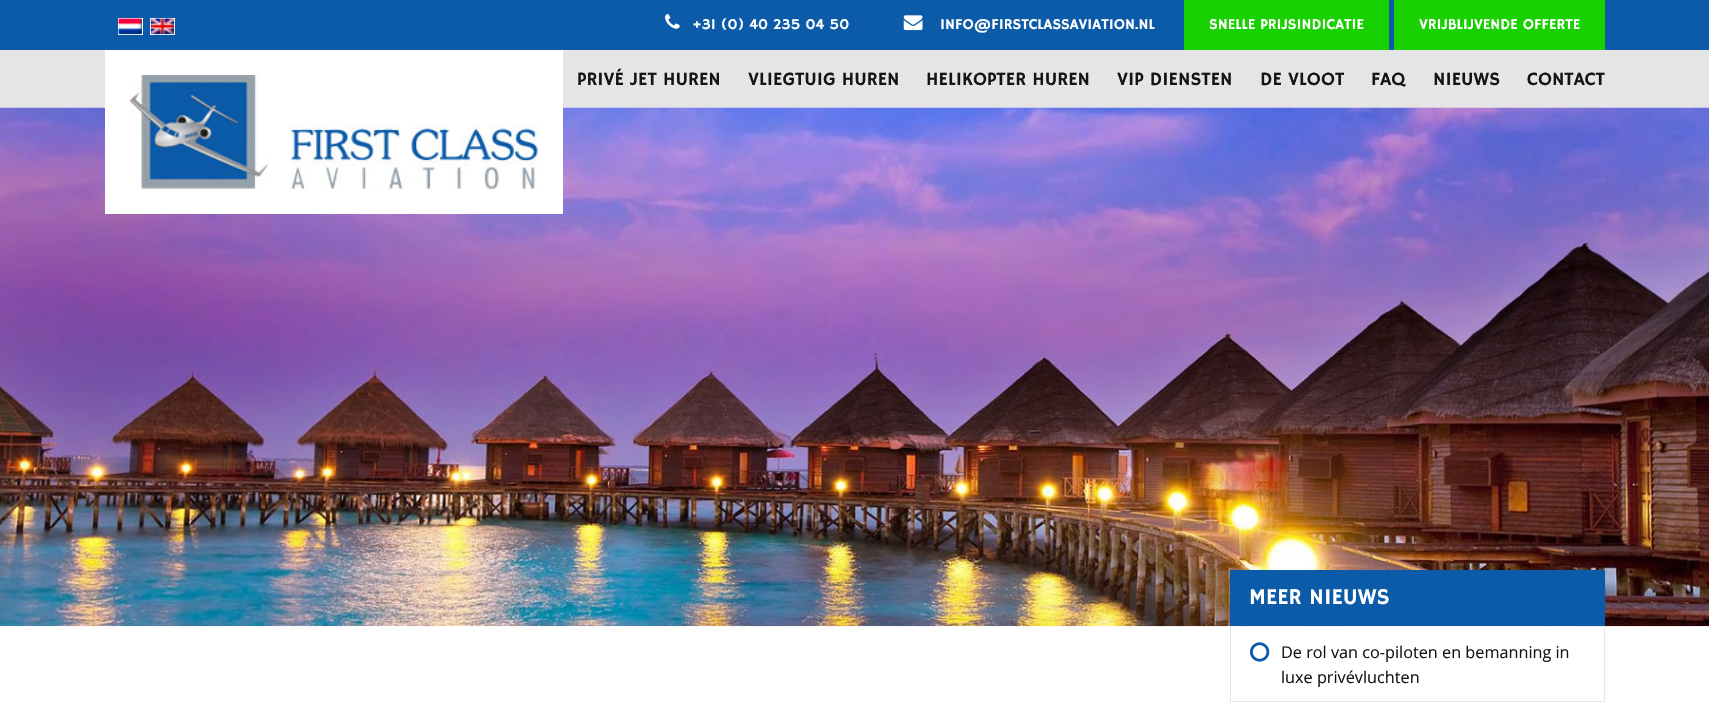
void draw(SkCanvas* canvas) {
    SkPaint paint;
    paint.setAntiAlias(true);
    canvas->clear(0xFFFFFFFF);
    paint.setColor(0xFF0B5BA8);
    canvas->drawRect(SkRect::MakeXYWH(0, 0, 1709, 50), paint);
    paint.setStyle(SkPaint::kStroke_Style);
    paint.setStrokeWidth(1);
    paint.setColor(0xFFFFFFFF);
    canvas->drawRect(SkRect::MakeXYWH(118.5f, 18.5f, 24, 16), paint);
    canvas->drawImageRect(SkImages::DeferredFromEncodedData(SkData::MakeFromFileName("img1.png")), SkRect::MakeXYWH(118, 18, 24, 17), SkSamplingOptions());
    canvas->drawRect(SkRect::MakeXYWH(150.5f, 18.5f, 24, 16), paint);
    canvas->drawImageRect(SkImages::DeferredFromEncodedData(SkData::MakeFromFileName("img2.png")), SkRect::MakeXYWH(150, 18, 25, 17), SkSamplingOptions());
    canvas->drawImageRect(SkImages::DeferredFromEncodedData(SkData::MakeFromFileName("img3.png")), SkRect::MakeXYWH(665, 14, 15, 15), SkSamplingOptions());
    SkFont font1(fontMgr->matchFamilyStyle("Hammersmith One", SkFontStyle::Normal()), 15);
    font1.setSubpixel(true);
    paint.setStyle(SkPaint::kFill_Style);
    canvas->drawString("+31 (0) 40 235 04 50", 692, 29, font1, paint);
    canvas->drawImageRect(SkImages::DeferredFromEncodedData(SkData::MakeFromFileName("img4.png")), SkRect::MakeXYWH(903, 15, 20, 16), SkSamplingOptions());
    canvas->drawString("INFO@FIRSTCLASSAVIATION.NL", 940, 29, font1, paint);
    paint.setColor(0xFF19D100);
    canvas->drawRect(SkRect::MakeXYWH(1184, 0, 205, 50), paint);
    paint.setColor(0xFFFFFFFF);
    canvas->drawString("SNELLE PRIJSINDICATIE", 1209, 29, font1, paint);
    paint.setColor(0xFF19D100);
    canvas->drawRect(SkRect::MakeXYWH(1394, 0, 211, 50), paint);
    paint.setColor(0xFFFFFFFF);
    canvas->drawString("VRIJBLIJVENDE OFFERTE", 1419, 29, font1, paint);
    paint.setColor(0xFFE5E5E5);
    canvas->drawRect(SkRect::MakeXYWH(0, 50, 1709, 58), paint);
    canvas->drawImageRect(SkImages::DeferredFromEncodedData(SkData::MakeFromFileName("img6.png")), SkRect::MakeXYWH(0, 107, 1709, 520), SkSamplingOptions());
    paint.setColor(0xFFFFFFFF);
    canvas->drawRect(SkRect::MakeXYWH(105, 50, 458, 164), paint);
    canvas->drawImageRect(SkImages::DeferredFromEncodedData(SkData::MakeFromFileName("img5.png")), SkRect::MakeXYWH(130, 75, 408, 114), SkSamplingOptions());
    SkFont font2(fontMgr->matchFamilyStyle("Hammersmith One", SkFontStyle::Normal()), 18.75f);
    font2.setSubpixel(true);
    paint.setColor(0xFF151515);
    canvas->drawString("PRIVÉ JET HUREN", 577, 85, font2, paint);
    canvas->drawString("VLIEGTUIG HUREN", 748, 85, font2, paint);
    canvas->drawString("HELIKOPTER HUREN", 926, 85, font2, paint);
    canvas->drawString("VIP DIENSTEN", 1117, 85, font2, paint);
    canvas->drawString("DE VLOOT", 1260, 85, font2, paint);
    canvas->drawString("FAQ", 1371, 85, font2, paint);
    canvas->drawString("NIEUWS", 1433, 85, font2, paint);
    canvas->drawString("CONTACT", 1527, 85, font2, paint);
    paint.setColor(0xFF0B5BA8);
    canvas->drawRect(SkRect::MakeXYWH(1230, 570, 375, 56), paint);
    SkFont font3(fontMgr->matchFamilyStyle("Hammersmith One", SkFontStyle::Normal()), 22.5f);
    font3.setSubpixel(true);
    paint.setColor(0xFFFFFFFF);
    canvas->drawString("MEER NIEUWS", 1249, 604, font3, paint);
    paint.setColor(0xFFE5E5E5);
    canvas->drawRect(SkRect::MakeXYWH(1604, 626, 1, 76), paint);
    canvas->drawRect(SkRect::MakeXYWH(1230, 701, 375, 1), paint);
    canvas->drawRect(SkRect::MakeXYWH(1230, 626, 1, 76), paint);
    canvas->drawImageRect(SkImages::DeferredFromEncodedData(SkData::MakeFromFileName("img7.png")), SkRect::MakeXYWH(1250, 642, 20, 20), SkSamplingOptions());
    SkFont font4(fontMgr->matchFamilyStyle("Open Sans", SkFontStyle::Normal()), 16.25f);
    font4.setSubpixel(true);
    paint.setColor(0xFF151515);
    canvas->drawString("De rol van co-piloten en bemanning in", 1281, 658, font4, paint);
    canvas->drawString("luxe privévluchten", 1281, 683, font4, paint);
}
